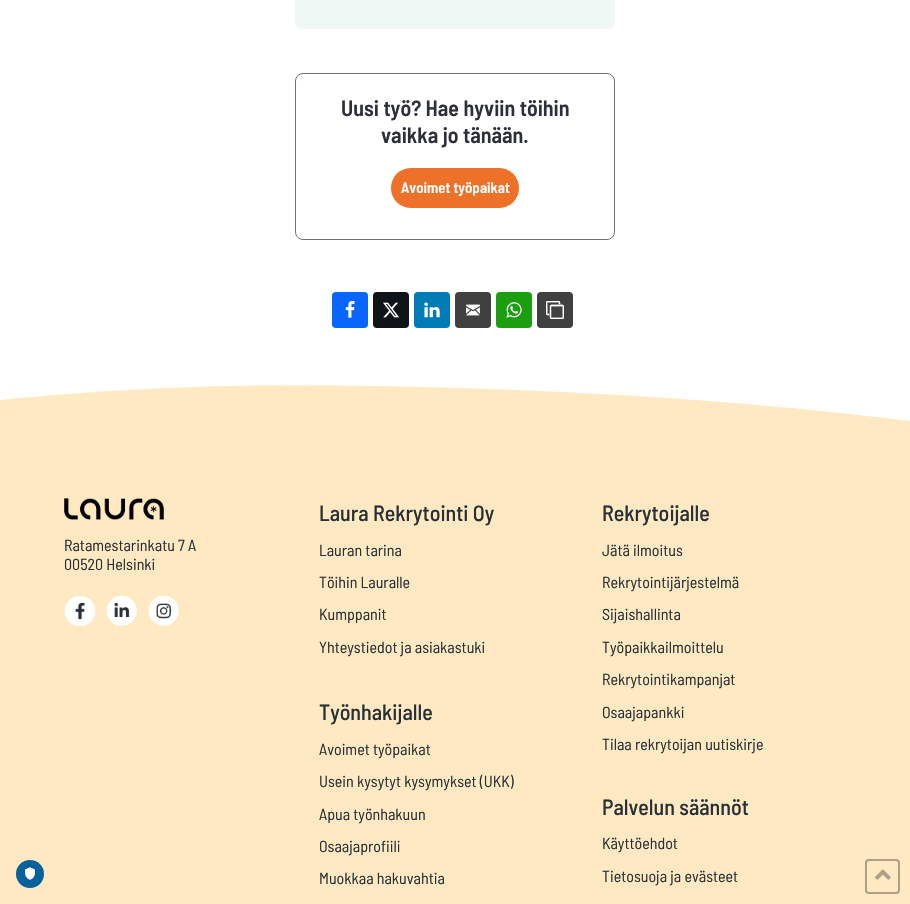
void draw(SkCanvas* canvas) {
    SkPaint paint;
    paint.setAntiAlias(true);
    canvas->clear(0xFFFFFFFF);
    canvas->drawImageRect(SkImages::DeferredFromEncodedData(SkData::MakeFromFileName("img7.png")), SkRect::MakeXYWH(0, 385, 910, 519), SkSamplingOptions());
    paint.setColor(0xFF07619B);
    canvas->drawCircle(30, 874, 14, paint);
    canvas->drawImageRect(SkImages::DeferredFromEncodedData(SkData::MakeFromFileName("img1.png")), SkRect::MakeXYWH(25, 867, 10, 13), SkSamplingOptions());
    paint.setColor(0xFFF0F8F6);
    canvas->drawRoundRect(SkRect::MakeXYWH(295, -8, 320, 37), 8, 8, paint);
    paint.setStyle(SkPaint::kStroke_Style);
    paint.setStrokeWidth(1);
    paint.setColor(0xFF707070);
    canvas->drawRoundRect(SkRect::MakeXYWH(295.5f, 73.5f, 319, 166), 7.5f, 7.5f, paint);
    SkFont font1(fontMgr->matchFamilyStyle("Barlow Semi Condensed", SkFontStyle(600, SkFontStyle::kNormal_Width, SkFontStyle::kUpright_Slant)), 22);
    font1.setSubpixel(true);
    paint.setStyle(SkPaint::kFill_Style);
    paint.setColor(0xFF2D2F3A);
    canvas->drawString("Uusi työ? Hae hyviin töihin", 341, 116, font1, paint);
    canvas->drawString("vaikka jo tänään.", 381, 143, font1, paint);
    paint.setColor(0xFFEE712A);
    canvas->drawRoundRect(SkRect::MakeXYWH(390.5f, 167.5f, 129, 41), 20.5f, 20.5f, paint);
    paint.setStyle(SkPaint::kStroke_Style);
    paint.setColor(0xFFFFFFFF);
    canvas->drawRoundRect(SkRect::MakeXYWH(390.5f, 167.5f, 129, 41), 20.5f, 20.5f, paint);
    SkFont font2(fontMgr->matchFamilyStyle("Barlow Semi Condensed", SkFontStyle(600, SkFontStyle::kNormal_Width, SkFontStyle::kUpright_Slant)), 15);
    font2.setSubpixel(true);
    paint.setStyle(SkPaint::kFill_Style);
    canvas->drawString("Avoimet työpaikat", 401, 193, font2, paint);
    paint.setColor(0xFF0866FF);
    canvas->drawRoundRect(SkRect::MakeXYWH(332, 292, 36, 36), 4, 4, paint);
    canvas->drawImageRect(SkImages::DeferredFromEncodedData(SkData::MakeFromFileName("img2.png")), SkRect::MakeXYWH(345, 301, 10, 17), SkSamplingOptions());
    paint.setColor(0xFF0F1419);
    canvas->drawRoundRect(SkRect::MakeXYWH(373, 292, 36, 36), 4, 4, paint);
    canvas->drawImageRect(SkImages::DeferredFromEncodedData(SkData::MakeFromFileName("img3.png")), SkRect::MakeXYWH(383, 302, 16, 16), SkSamplingOptions());
    paint.setColor(0xFF007BB6);
    canvas->drawRoundRect(SkRect::MakeXYWH(414, 292, 36, 36), 4, 4, paint);
    canvas->drawImageRect(SkImages::DeferredFromEncodedData(SkData::MakeFromFileName("img4.png")), SkRect::MakeXYWH(424, 302, 16, 16), SkSamplingOptions());
    paint.setColor(0xFF404040);
    canvas->drawRoundRect(SkRect::MakeXYWH(455, 292, 36, 36), 4, 4, paint);
    canvas->drawImageRect(SkImages::DeferredFromEncodedData(SkData::MakeFromFileName("img5.png")), SkRect::MakeXYWH(466, 304, 14, 12), SkSamplingOptions());
    paint.setColor(0xFF1D9E11);
    canvas->drawRoundRect(SkRect::MakeXYWH(496, 292, 36, 36), 4, 4, paint);
    canvas->drawImageRect(SkImages::DeferredFromEncodedData(SkData::MakeFromFileName("img6.png")), SkRect::MakeXYWH(506, 302, 16, 16), SkSamplingOptions());
    paint.setColor(0xFF404040);
    canvas->drawRoundRect(SkRect::MakeXYWH(537, 292, 36, 36), 4, 4, paint);
    SkFont font3(fontMgr->matchFamilyStyle("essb", SkFontStyle::Normal()), 18);
    font3.setSubpixel(true);
    paint.setColor(0xFFFFFFFF);
    canvas->drawString("_", 546, 319, font3, paint);
    canvas->drawImageRect(SkImages::DeferredFromEncodedData(SkData::MakeFromFileName("img8.png")), SkRect::MakeXYWH(64, 498, 100, 22), SkSamplingOptions());
    SkFont font4(fontMgr->matchFamilyStyle("Barlow Semi Condensed", SkFontStyle::Normal()), 16);
    font4.setSubpixel(true);
    paint.setColor(0xFF273036);
    canvas->drawString("Ratamestarinkatu 7 A", 64, 551, font4, paint);
    canvas->drawString("00520 Helsinki", 64, 570, font4, paint);
    canvas->drawImageRect(SkImages::DeferredFromEncodedData(SkData::MakeFromFileName("img9.png")), SkRect::MakeXYWH(64, 595, 32, 32), SkSamplingOptions());
    canvas->drawImageRect(SkImages::DeferredFromEncodedData(SkData::MakeFromFileName("img10.png")), SkRect::MakeXYWH(106, 595, 31, 31), SkSamplingOptions());
    canvas->drawImageRect(SkImages::DeferredFromEncodedData(SkData::MakeFromFileName("img11.png")), SkRect::MakeXYWH(148, 595, 31, 31), SkSamplingOptions());
    SkFont font5(fontMgr->matchFamilyStyle("Barlow Semi Condensed", SkFontStyle(500, SkFontStyle::kNormal_Width, SkFontStyle::kUpright_Slant)), 22);
    font5.setSubpixel(true);
    canvas->drawString("Laura Rekrytointi Oy", 319, 521, font5, paint);
    canvas->drawString("Lauran tarina", 319, 556, font4, paint);
    canvas->drawString("Töihin Lauralle", 319, 588, font4, paint);
    canvas->drawString("Kumppanit", 319, 620, font4, paint);
    canvas->drawString("Yhteystiedot ja asiakastuki", 319, 653, font4, paint);
    canvas->drawString("Työnhakijalle", 319, 720, font5, paint);
    canvas->drawString("Avoimet työpaikat", 319, 755, font4, paint);
    canvas->drawString("Usein kysytyt kysymykset (UKK)", 319, 787, font4, paint);
    canvas->drawString("Apua työnhakuun", 319, 820, font4, paint);
    canvas->drawString("Osaajaprofiili", 319, 852, font4, paint);
    canvas->drawString("Muokkaa hakuvahtia", 319, 884, font4, paint);
    canvas->drawString("Rekrytoijalle", 602, 521, font5, paint);
    canvas->drawString("Jätä ilmoitus", 602, 556, font4, paint);
    canvas->drawString("Rekrytointijärjestelmä", 602, 588, font4, paint);
    canvas->drawString("Sijaishallinta", 602, 620, font4, paint);
    canvas->drawString("Työpaikkailmoittelu", 602, 653, font4, paint);
    canvas->drawString("Rekrytointikampanjat", 602, 685, font4, paint);
    canvas->drawString("Osaajapankki", 602, 718, font4, paint);
    canvas->drawString("Tilaa rekrytoijan uutiskirje", 602, 750, font4, paint);
    canvas->drawString("Palvelun säännöt", 602, 815, font5, paint);
    canvas->drawString("Käyttöehdot", 602, 849, font4, paint);
    canvas->drawString("Tietosuoja ja evästeet", 602, 882, font4, paint);
    paint.setStyle(SkPaint::kStroke_Style);
    paint.setStrokeWidth(2);
    paint.setColor(0xFFAEA088);
    canvas->drawRoundRect(SkRect::MakeXYWH(866, 860, 33, 33), 3, 3, paint);
    canvas->drawImageRect(SkImages::DeferredFromEncodedData(SkData::MakeFromFileName("img12.png")), SkRect::MakeXYWH(875, 869, 16, 11), SkSamplingOptions());
}
